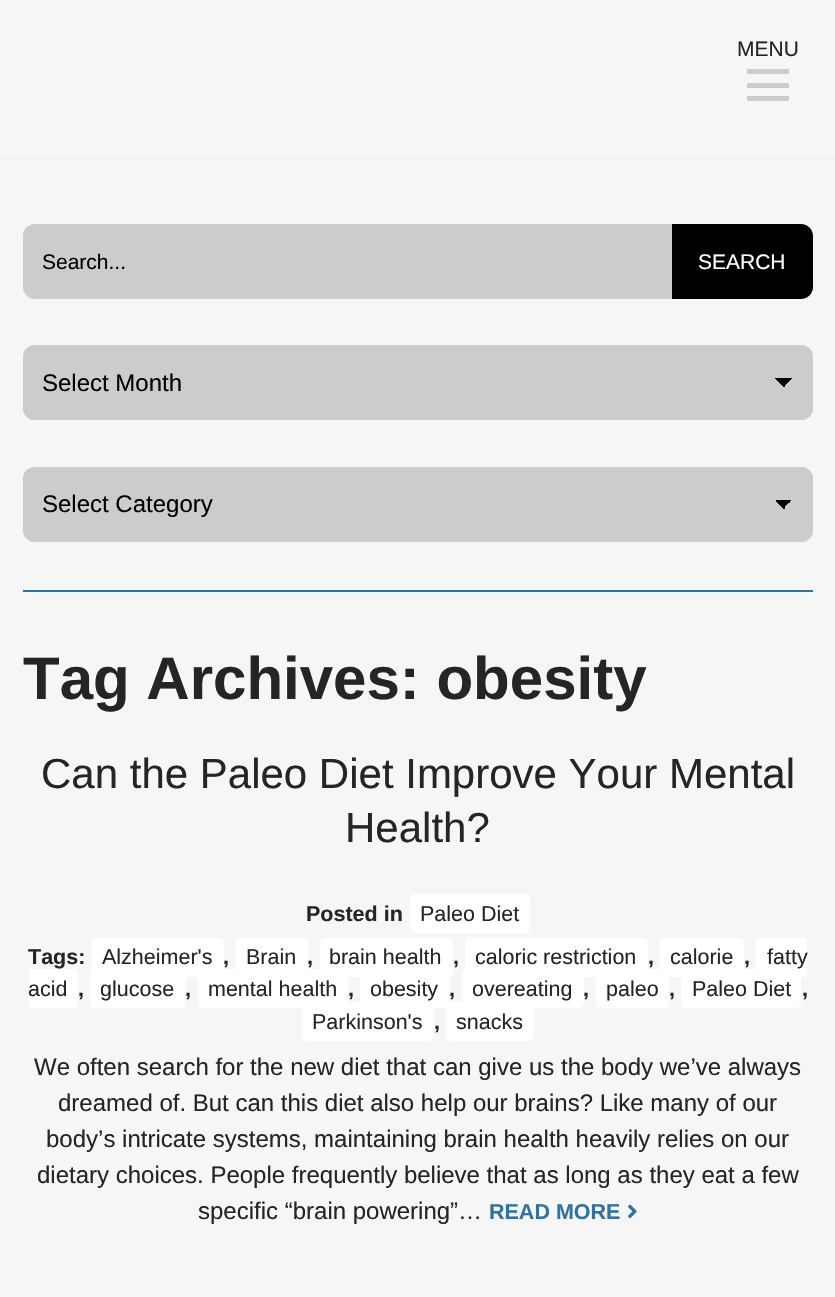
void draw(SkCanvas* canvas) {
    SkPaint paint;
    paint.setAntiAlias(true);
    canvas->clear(0xFFF6F6F6);
    paint.setColor(0xFFF2F2F2);
    canvas->drawRect(SkRect::MakeXYWH(0, 158, 835, 2), paint);
    SkFont font1(fontMgr->matchFamilyStyle("Liberation Sans", SkFontStyle::Normal()), 21);
    font1.setSubpixel(true);
    paint.setColor(0xFF252525);
    canvas->drawString("MENU", 737, 56, font1, paint);
    paint.setColor(0xFFCCCCCC);
    canvas->drawRect(SkRect::MakeXYWH(747, 69, 42, 5), paint);
    canvas->drawRect(SkRect::MakeXYWH(747, 83, 42, 5), paint);
    canvas->drawRect(SkRect::MakeXYWH(747, 96, 42, 5), paint);
    paint.setColor(0xFF3172A2);
    canvas->drawRect(SkRect::MakeXYWH(23, 590, 790, 2), paint);
    paint.setColor(0xFFCCCCCC);
    canvas->drawPath(SkPathBuilder().moveTo(35, 225).lineTo(671, 225).lineTo(671, 298).lineTo(35, 298).cubicTo(29, 298, 24, 293, 24, 287).lineTo(24, 236).cubicTo(24, 230, 29, 225, 35, 225).close().detach(), paint);
    paint.setStyle(SkPaint::kStroke_Style);
    paint.setStrokeWidth(2);
    canvas->drawPath(SkPathBuilder().moveTo(35, 225).lineTo(671, 225).lineTo(671, 298).lineTo(35, 298).cubicTo(29, 298, 24, 293, 24, 287).lineTo(24, 236).cubicTo(24, 230, 29, 225, 35, 225).close().detach(), paint);
    paint.setStyle(SkPaint::kFill_Style);
    paint.setColor(0xFF000000);
    canvas->drawString("Search...", 42, 269, font1, paint);
    canvas->drawPath(SkPathBuilder().moveTo(672, 224).lineTo(801, 224).cubicTo(807.5f, 224, 813, 229.5f, 813, 236).lineTo(813, 287).cubicTo(813, 293.5f, 807.5f, 299, 801, 299).lineTo(672, 299).close().detach(), paint);
    paint.setColor(0xFFFFFFFF);
    canvas->drawString("SEARCH", 698, 269, font1, paint);
    paint.setColor(0xFFCCCCCC);
    canvas->drawRoundRect(SkRect::MakeXYWH(23, 345, 790, 75), 12, 12, paint);
    {
        const SkColor colors[] = {0xFF000000, 0xFFCCCCCC};
        const float stops[] = {0.5f, 0.5f};
        const SkPoint ends[] = {{783, 378}, {793, 387}};
        paint.setShader(SkGradientShader::MakeLinear(ends, colors, stops, 2, SkTileMode::kClamp));
        paint.setAlpha(255);
    }
    canvas->drawRect(SkRect::MakeXYWH(785, 378, 7, 7), paint);
    {
        const SkColor colors[] = {0x00000000, 0xFF000000};
        const float stops[] = {0.5f, 0.5f};
        const SkPoint ends[] = {{774, 387}, {784, 378}};
        paint.setShader(SkGradientShader::MakeLinear(ends, colors, stops, 2, SkTileMode::kClamp));
        paint.setAlpha(255);
    }
    canvas->drawRect(SkRect::MakeXYWH(775, 378, 10, 9), paint);
    paint.setStyle(SkPaint::kStroke_Style);
    paint.setShader(nullptr);
    paint.setColor(0xFFCCCCCC);
    canvas->drawRoundRect(SkRect::MakeXYWH(24, 346, 788, 73), 11, 11, paint);
    SkFont font2(fontMgr->matchFamilyStyle("Liberation Sans", SkFontStyle::Normal()), 24);
    font2.setSubpixel(true);
    paint.setStyle(SkPaint::kFill_Style);
    paint.setColor(0xFF000000);
    canvas->drawString("Select Month", 42, 391, font2, paint);
    paint.setColor(0xFFCCCCCC);
    canvas->drawRoundRect(SkRect::MakeXYWH(23, 467, 790, 75), 12, 12, paint);
    {
        const SkColor colors[] = {0xFF000000, 0xFFCCCCCC};
        const float stops[] = {0.5f, 0.5f};
        const SkPoint ends[] = {{783, 499}, {793, 509}};
        paint.setShader(SkGradientShader::MakeLinear(ends, colors, stops, 2, SkTileMode::kClamp));
        paint.setAlpha(255);
    }
    canvas->drawRect(SkRect::MakeXYWH(783, 500, 9, 8), paint);
    {
        const SkColor colors[] = {0x00000000, 0xFF000000};
        const float stops[] = {0.5f, 0.5f};
        const SkPoint ends[] = {{774, 509}, {784, 499}};
        paint.setShader(SkGradientShader::MakeLinear(ends, colors, stops, 2, SkTileMode::kClamp));
        paint.setAlpha(255);
    }
    canvas->drawRect(SkRect::MakeXYWH(776, 500, 9, 9), paint);
    paint.setStyle(SkPaint::kStroke_Style);
    paint.setShader(nullptr);
    paint.setColor(0xFFCCCCCC);
    canvas->drawRoundRect(SkRect::MakeXYWH(24, 468, 788, 73), 11, 11, paint);
    paint.setStyle(SkPaint::kFill_Style);
    paint.setColor(0xFF000000);
    canvas->drawString("Select Category", 42, 512, font2, paint);
    SkFont font3(fontMgr->matchFamilyStyle("Liberation Sans", SkFontStyle::Bold()), 60);
    font3.setSubpixel(true);
    paint.setColor(0xFF252525);
    canvas->drawString("Tag Archives: obesity", 23, 699, font3, paint);
    SkFont font4(fontMgr->matchFamilyStyle("Liberation Sans", SkFontStyle::Normal()), 42);
    font4.setSubpixel(true);
    canvas->drawString("Can the Paleo Diet Improve Your Mental", 41, 788, font4, paint);
    canvas->drawString("Health?", 345, 842, font4, paint);
    SkFont font5(fontMgr->matchFamilyStyle("Liberation Sans", SkFontStyle::Bold()), 21.5f);
    font5.setSubpixel(true);
    canvas->drawString("Posted in", 306, 921, font5, paint);
    paint.setColor(0xFFFFFFFF);
    canvas->drawRoundRect(SkRect::MakeXYWH(410, 894, 120, 39), 5, 5, paint);
    SkFont font6(fontMgr->matchFamilyStyle("Liberation Sans", SkFontStyle::Normal()), 21.5f);
    font6.setSubpixel(true);
    paint.setColor(0xFF252525);
    canvas->drawString("Paleo Diet", 420, 921, font6, paint);
    canvas->drawString("Tags:", 28, 964, font5, paint);
    paint.setColor(0xFFFFFFFF);
    canvas->drawRoundRect(SkRect::MakeXYWH(92, 938, 132, 39), 5, 5, paint);
    paint.setColor(0xFF252525);
    canvas->drawString("Alzheimer's", 102, 964, font6, paint);
    canvas->drawString(",", 223, 964, font5, paint);
    paint.setColor(0xFFFFFFFF);
    canvas->drawRoundRect(SkRect::MakeXYWH(236, 938, 72, 39), 5, 5, paint);
    paint.setColor(0xFF252525);
    canvas->drawString("Brain", 246, 964, font6, paint);
    canvas->drawString(",", 307, 964, font5, paint);
    paint.setColor(0xFFFFFFFF);
    canvas->drawRoundRect(SkRect::MakeXYWH(320, 938, 133, 39), 5, 5, paint);
    paint.setColor(0xFF252525);
    canvas->drawString("brain health", 329, 964, font6, paint);
    canvas->drawString(",", 453, 964, font5, paint);
    paint.setColor(0xFFFFFFFF);
    canvas->drawRoundRect(SkRect::MakeXYWH(465, 938, 183, 39), 5, 5, paint);
    paint.setColor(0xFF252525);
    canvas->drawString("caloric restriction", 475, 964, font6, paint);
    canvas->drawString(",", 648, 964, font5, paint);
    paint.setColor(0xFFFFFFFF);
    canvas->drawRoundRect(SkRect::MakeXYWH(660, 938, 84, 39), 5, 5, paint);
    paint.setColor(0xFF252525);
    canvas->drawString("calorie", 670, 964, font6, paint);
    canvas->drawString(",", 744, 964, font5, paint);
    paint.setColor(0xFFFFFFFF);
    canvas->drawPath(SkPathBuilder().moveTo(761, 938).lineTo(807, 938).lineTo(807, 977).lineTo(761, 977).cubicTo(758, 977, 756, 975, 756, 972).lineTo(756, 943).cubicTo(756, 940, 758, 938, 761, 938).close().detach(), paint);
    paint.setColor(0xFF252525);
    canvas->drawString("fatty", 767, 964, font6, paint);
    paint.setColor(0xFFFFFFFF);
    canvas->drawPath(SkPathBuilder().moveTo(29, 969).lineTo(73, 969).cubicTo(76, 969, 78, 971, 78, 974).lineTo(78, 1003).cubicTo(78, 1006, 76, 1008, 73, 1008).lineTo(29, 1008).close().detach(), paint);
    paint.setColor(0xFF252525);
    canvas->drawString("acid", 28, 996, font6, paint);
    canvas->drawString(",", 78, 996, font5, paint);
    paint.setColor(0xFFFFFFFF);
    canvas->drawRoundRect(SkRect::MakeXYWH(90, 969, 96, 39), 5, 5, paint);
    paint.setColor(0xFF252525);
    canvas->drawString("glucose", 100, 996, font6, paint);
    canvas->drawString(",", 185, 996, font5, paint);
    paint.setColor(0xFFFFFFFF);
    canvas->drawRoundRect(SkRect::MakeXYWH(198, 969, 150, 39), 5, 5, paint);
    paint.setColor(0xFF252525);
    canvas->drawString("mental health", 208, 996, font6, paint);
    canvas->drawString(",", 348, 996, font5, paint);
    paint.setColor(0xFFFFFFFF);
    canvas->drawRoundRect(SkRect::MakeXYWH(360, 969, 90, 39), 5, 5, paint);
    paint.setColor(0xFF252525);
    canvas->drawString("obesity", 370, 996, font6, paint);
    canvas->drawString(",", 449, 996, font5, paint);
    paint.setColor(0xFFFFFFFF);
    canvas->drawRoundRect(SkRect::MakeXYWH(462, 969, 122, 39), 5, 5, paint);
    paint.setColor(0xFF252525);
    canvas->drawString("overeating", 472, 996, font6, paint);
    canvas->drawString(",", 583, 996, font5, paint);
    paint.setColor(0xFFFFFFFF);
    canvas->drawRoundRect(SkRect::MakeXYWH(596, 969, 73, 39), 5, 5, paint);
    paint.setColor(0xFF252525);
    canvas->drawString("paleo", 606, 996, font6, paint);
    canvas->drawString(",", 669, 996, font5, paint);
    paint.setColor(0xFFFFFFFF);
    canvas->drawRoundRect(SkRect::MakeXYWH(681, 969, 120, 39), 5, 5, paint);
    paint.setColor(0xFF252525);
    canvas->drawString("Paleo Diet", 692, 996, font6, paint);
    canvas->drawString(",", 802, 996, font5, paint);
    paint.setColor(0xFFFFFFFF);
    canvas->drawRoundRect(SkRect::MakeXYWH(302, 1002, 132, 39), 5, 5, paint);
    paint.setColor(0xFF252525);
    canvas->drawString("Parkinson's", 312, 1029, font6, paint);
    canvas->drawString(",", 434, 1029, font5, paint);
    paint.setColor(0xFFFFFFFF);
    canvas->drawRoundRect(SkRect::MakeXYWH(446, 1002, 88, 39), 5, 5, paint);
    paint.setColor(0xFF252525);
    canvas->drawString("snacks", 456, 1029, font6, paint);
    canvas->drawString("We often search for the new diet that can give us the body we’ve always", 34, 1075, font2, paint);
    canvas->drawString("dreamed of. But can this diet also help our brains? Like many of our", 58, 1111, font2, paint);
    canvas->drawString("body’s intricate systems, maintaining brain health heavily relies on our", 46, 1147, font2, paint);
    canvas->drawString("dietary choices. People frequently believe that as long as they eat a few", 37, 1183, font2, paint);
    canvas->drawString("specific “brain powering”…", 198, 1219, font2, paint);
    paint.setColor(0xFF3172A2);
    canvas->drawString("READ MORE", 489, 1219, font5, paint);
    canvas->drawImageRect(SkImages::DeferredFromEncodedData(SkData::MakeFromFileName("img1.png")), SkRect::MakeXYWH(628, 1204, 9, 15), SkSamplingOptions());
}
